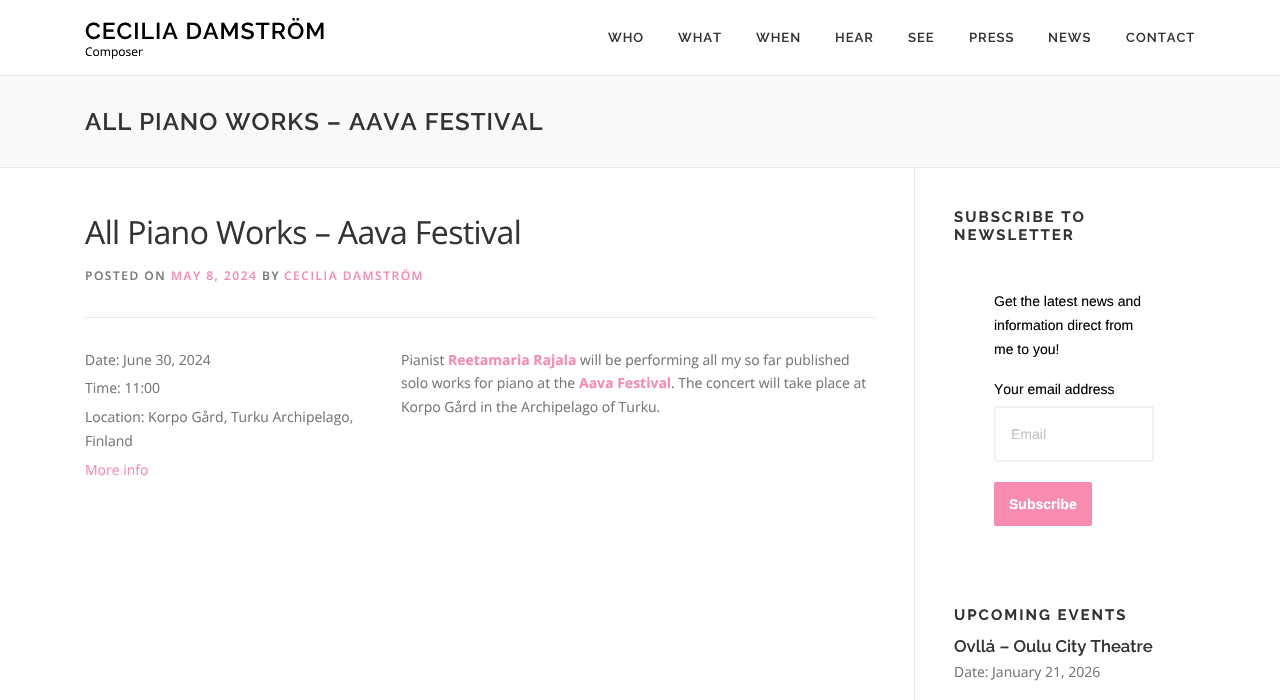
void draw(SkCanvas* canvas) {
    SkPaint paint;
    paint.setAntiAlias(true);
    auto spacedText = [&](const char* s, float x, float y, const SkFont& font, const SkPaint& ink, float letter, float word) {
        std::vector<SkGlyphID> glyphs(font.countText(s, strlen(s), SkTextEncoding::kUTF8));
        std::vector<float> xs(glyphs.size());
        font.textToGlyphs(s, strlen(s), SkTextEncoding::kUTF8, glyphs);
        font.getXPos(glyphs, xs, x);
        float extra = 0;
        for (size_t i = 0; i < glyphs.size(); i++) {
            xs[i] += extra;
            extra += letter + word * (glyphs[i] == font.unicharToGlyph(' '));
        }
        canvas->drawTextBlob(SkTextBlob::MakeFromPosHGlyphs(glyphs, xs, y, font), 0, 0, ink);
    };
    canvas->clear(0xFFFFFFFF);
    SkFont font1(fontMgr->matchFamilyStyle("Raleway", SkFontStyle(600, SkFontStyle::kNormal_Width, SkFontStyle::kUpright_Slant)), 23);
    font1.setSubpixel(true);
    paint.setColor(0xFF000000);
    spacedText("CECILIA DAMSTRÖM", 85, 39, font1, paint, 1, 0);
    SkFont font2(fontMgr->matchFamilyStyle("Open Sans", SkFontStyle::Normal()), 12);
    font2.setSubpixel(true);
    canvas->drawString("Composer", 85, 56, font2, paint);
    SkFont font3(fontMgr->matchFamilyStyle("Raleway", SkFontStyle(600, SkFontStyle::kNormal_Width, SkFontStyle::kUpright_Slant)), 13);
    font3.setSubpixel(true);
    paint.setColor(0xFF333333);
    spacedText("WHO", 608, 42, font3, paint, 1, 0);
    spacedText("WHAT", 678, 42, font3, paint, 1, 0);
    spacedText("WHEN", 756, 42, font3, paint, 1, 0);
    spacedText("HEAR", 835, 42, font3, paint, 1, 0);
    spacedText("SEE", 908, 42, font3, paint, 1, 0);
    spacedText("PRESS", 969, 42, font3, paint, 1, 0);
    spacedText("NEWS", 1048, 42, font3, paint, 1, 0);
    spacedText("CONTACT", 1126, 42, font3, paint, 1, 0);
    paint.setColor(0xFFF8F9F9);
    canvas->drawRect(SkRect::MakeXYWH(0, 76, 1280, 91), paint);
    paint.setColor(0xFFE9E9E9);
    canvas->drawRect(SkRect::MakeXYWH(0, 75, 1280, 1), paint);
    canvas->drawRect(SkRect::MakeXYWH(0, 167, 1280, 1), paint);
    SkFont font4(fontMgr->matchFamilyStyle("Raleway", SkFontStyle(600, SkFontStyle::kNormal_Width, SkFontStyle::kUpright_Slant)), 24);
    font4.setSubpixel(true);
    paint.setColor(0xFF333333);
    spacedText("ALL PIANO WORKS – AAVA FESTIVAL", 85, 130, font4, paint, 1, 0);
    SkFont font5(fontMgr->matchFamilyStyle("Open Sans", SkFontStyle::Normal()), 32);
    font5.setSubpixel(true);
    spacedText("All Piano Works – Aava Festival", 85, 244, font5, paint, -0.6f, 0);
    paint.setColor(0xFFE9E9E9);
    canvas->drawRect(SkRect::MakeXYWH(85, 317, 790, 1), paint);
    SkFont font6(fontMgr->matchFamilyStyle("Open Sans", SkFontStyle(600, SkFontStyle::kNormal_Width, SkFontStyle::kUpright_Slant)), 12);
    font6.setSubpixel(true);
    paint.setColor(0xFF777777);
    spacedText("POSTED ON", 85, 280, font6, paint, 1.5f, 0);
    paint.setColor(0xFFF78CB0);
    spacedText("MAY 8, 2024", 171, 280, font6, paint, 1.5f, 0);
    paint.setColor(0xFF777777);
    spacedText("BY", 262, 280, font6, paint, 1.5f, 0);
    paint.setColor(0xFFF78CB0);
    spacedText("CECILIA DAMSTRÖM", 284, 280, font6, paint, 1.5f, 0);
    SkFont font7(fontMgr->matchFamilyStyle("Open Sans", SkFontStyle::Normal()), 14);
    font7.setSubpixel(true);
    paint.setColor(0xFF777777);
    canvas->drawString("Date: June 30, 2024", 85, 365, font7, paint);
    canvas->drawString("Time: 11:00", 85, 393, font7, paint);
    canvas->drawString("Location: Korpo Gård, Turku Archipelago,", 85, 422, font7, paint);
    canvas->drawString("Finland", 85, 446, font7, paint);
    paint.setColor(0xFFF78CB0);
    canvas->drawString("More info", 85, 475, font7, paint);
    paint.setColor(0xFF777777);
    canvas->drawString("Pianist", 401, 365, font7, paint);
    SkFont font8(fontMgr->matchFamilyStyle("Open Sans", SkFontStyle::Bold()), 14);
    font8.setSubpixel(true);
    paint.setColor(0xFFF78CB0);
    canvas->drawString("Reetamaria Rajala", 448, 365, font8, paint);
    paint.setColor(0xFF777777);
    canvas->drawString("will be performing all my so far published", 580, 365, font7, paint);
    canvas->drawString("solo works for piano at the", 401, 388, font7, paint);
    paint.setColor(0xFFF78CB0);
    canvas->drawString("Aava Festival", 579, 388, font8, paint);
    paint.setColor(0xFF777777);
    canvas->drawString(". The concert will take place at", 671, 388, font7, paint);
    canvas->drawString("Korpo Gård in the Archipelago of Turku.", 401, 412, font7, paint);
    paint.setColor(0xFFE9E9E9);
    canvas->drawRect(SkRect::MakeXYWH(914, 168, 1, 532), paint);
    SkFont font9(fontMgr->matchFamilyStyle("Raleway", SkFontStyle::Bold()), 15);
    font9.setSubpixel(true);
    paint.setColor(0xFF333333);
    spacedText("SUBSCRIBE TO", 954, 222, font9, paint, 2, 0);
    spacedText("NEWSLETTER", 954, 240, font9, paint, 2, 0);
    SkFont font10(fontMgr->matchFamilyStyle("Liberation Sans", SkFontStyle::Normal()), 14);
    font10.setSubpixel(true);
    paint.setColor(0xFF000000);
    canvas->drawString("Get the latest news and", 994, 306, font10, paint);
    canvas->drawString("information direct from", 994, 330, font10, paint);
    canvas->drawString("me to you!", 994, 354, font10, paint);
    canvas->drawString("Your email address", 994, 394, font10, paint);
    paint.setStyle(SkPaint::kStroke_Style);
    paint.setStrokeWidth(2);
    paint.setColor(0xFFF1F2F2);
    canvas->drawRect(SkRect::MakeXYWH(995, 407, 158, 54), paint);
    paint.setStyle(SkPaint::kFill_Style);
    paint.setColor(0xFFC4C4C4);
    canvas->drawString("Email", 1011, 439, font10, paint);
    paint.setColor(0xFFF78CB0);
    canvas->drawRoundRect(SkRect::MakeXYWH(994, 482, 98, 44), 2, 2, paint);
    SkFont font11(fontMgr->matchFamilyStyle("Liberation Sans", SkFontStyle::Bold()), 14);
    font11.setSubpixel(true);
    paint.setColor(0xFFFFFFFF);
    canvas->drawString("Subscribe", 1009, 509, font11, paint);
    paint.setColor(0xFF333333);
    spacedText("UPCOMING EVENTS", 954, 620, font9, paint, 2, 0);
    SkFont font12(fontMgr->matchFamilyStyle("Raleway", SkFontStyle(600, SkFontStyle::kNormal_Width, SkFontStyle::kUpright_Slant)), 16.75f);
    font12.setSubpixel(true);
    canvas->drawString("Ovllá – Oulu City Theatre", 954, 652, font12, paint);
    paint.setColor(0xFF777777);
    canvas->drawString("Date: January 21, 2026", 954, 677, font7, paint);
}
